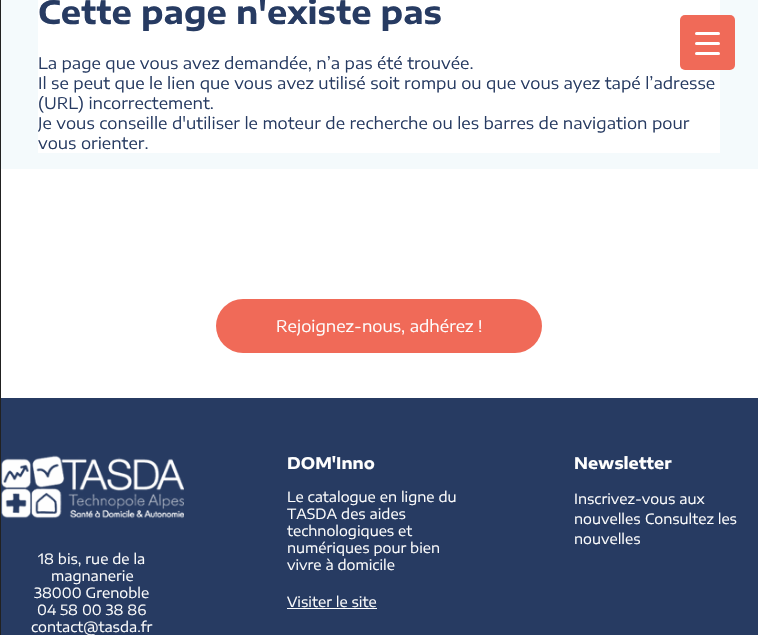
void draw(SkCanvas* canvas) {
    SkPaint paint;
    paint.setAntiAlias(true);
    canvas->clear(0xFFF4FAFC);
    paint.setColor(0xFF212121);
    canvas->drawRect(SkRect::MakeXYWH(0, 0, 1, 635), paint);
    paint.setColor(0xFFFFFFFF);
    canvas->drawRect(SkRect::MakeXYWH(38, 0, 682, 153), paint);
    SkFont font1(fontMgr->matchFamilyStyle("Encode Sans Expanded", SkFontStyle::Bold()), 32);
    font1.setSubpixel(true);
    paint.setColor(0xFF273B62);
    canvas->drawString("Cette page n'existe pas", 38, 24, font1, paint);
    SkFont font2(fontMgr->matchFamilyStyle("Encode Sans Expanded", SkFontStyle::Normal()), 16);
    font2.setSubpixel(true);
    canvas->drawString("La page que vous avez demandée, n’a pas été trouvée.", 38, 69, font2, paint);
    canvas->drawString("Il se peut que le lien que vous avez utilisé soit rompu ou que vous ayez tapé l’adresse", 38, 89, font2, paint);
    canvas->drawString("(URL) incorrectement.", 38, 109, font2, paint);
    canvas->drawString("Je vous conseille d'utiliser le moteur de recherche ou les barres de navigation pour", 38, 129, font2, paint);
    canvas->drawString("vous orienter.", 38, 149, font2, paint);
    paint.setColor(0xFFF06A58);
    canvas->drawRoundRect(SkRect::MakeXYWH(680, 15, 55, 55), 5, 5, paint);
    paint.setColor(0xFFFFFFFF);
    canvas->drawRoundRect(SkRect::MakeXYWH(695, 42, 25, 3), 1.5f, 1.5f, paint);
    canvas->drawRoundRect(SkRect::MakeXYWH(695, 32, 25, 3), 1.5f, 1.5f, paint);
    canvas->drawRoundRect(SkRect::MakeXYWH(695, 52, 25, 3), 1.5f, 1.5f, paint);
    canvas->drawRect(SkRect::MakeXYWH(1, 169, 757, 229), paint);
    paint.setColor(0xFFF06A58);
    canvas->drawRoundRect(SkRect::MakeXYWH(216, 299, 326, 54), 27, 27, paint);
    paint.setColor(0xFFFEFEFE);
    canvas->drawString("Rejoignez-nous, adhérez !", 276, 332, font2, paint);
    paint.setColor(0xFF273B62);
    canvas->drawRect(SkRect::MakeXYWH(1, 398, 757, 237), paint);
    SkFont font3(fontMgr->matchFamilyStyle("Encode Sans Expanded", SkFontStyle::Bold()), 16);
    font3.setSubpixel(true);
    paint.setColor(0xFFFEFEFE);
    canvas->drawString("DOM'Inno", 287, 469, font3, paint);
    SkFont font4(fontMgr->matchFamilyStyle("Encode Sans Expanded", SkFontStyle::Normal()), 14);
    font4.setSubpixel(true);
    canvas->drawString("Le catalogue en ligne du", 287, 502, font4, paint);
    canvas->drawString("TASDA des aides", 287, 519, font4, paint);
    canvas->drawString("technologiques et", 287, 536, font4, paint);
    canvas->drawString("numériques pour bien", 287, 553, font4, paint);
    canvas->drawString("vivre à domicile", 287, 570, font4, paint);
    canvas->drawString("Visiter le site", 287, 607, font4, paint);
    canvas->drawRect(SkRect::MakeXYWH(287, 608, 90, 1), paint);
    canvas->drawString("Newsletter", 574, 469, font3, paint);
    canvas->drawString("Inscrivez-vous aux", 574, 504, font4, paint);
    canvas->drawString("nouvelles", 574, 524, font4, paint);
    canvas->drawString("Consultez les", 645, 524, font4, paint);
    canvas->drawString("nouvelles", 574, 544, font4, paint);
    canvas->drawImageRect(SkImages::DeferredFromEncodedData(SkData::MakeFromFileName("img1.png")), SkRect::MakeXYWH(1, 455, 183, 64), SkSamplingOptions());
    canvas->drawString("18 bis, rue de la", 38, 564, font4, paint);
    canvas->drawString("magnanerie", 51, 581, font4, paint);
    canvas->drawString("38000 Grenoble", 34, 598, font4, paint);
    canvas->drawString("04 58 00 38 86", 37, 615, font4, paint);
    canvas->drawString("contact@tasda.fr", 31, 632, font4, paint);
}
